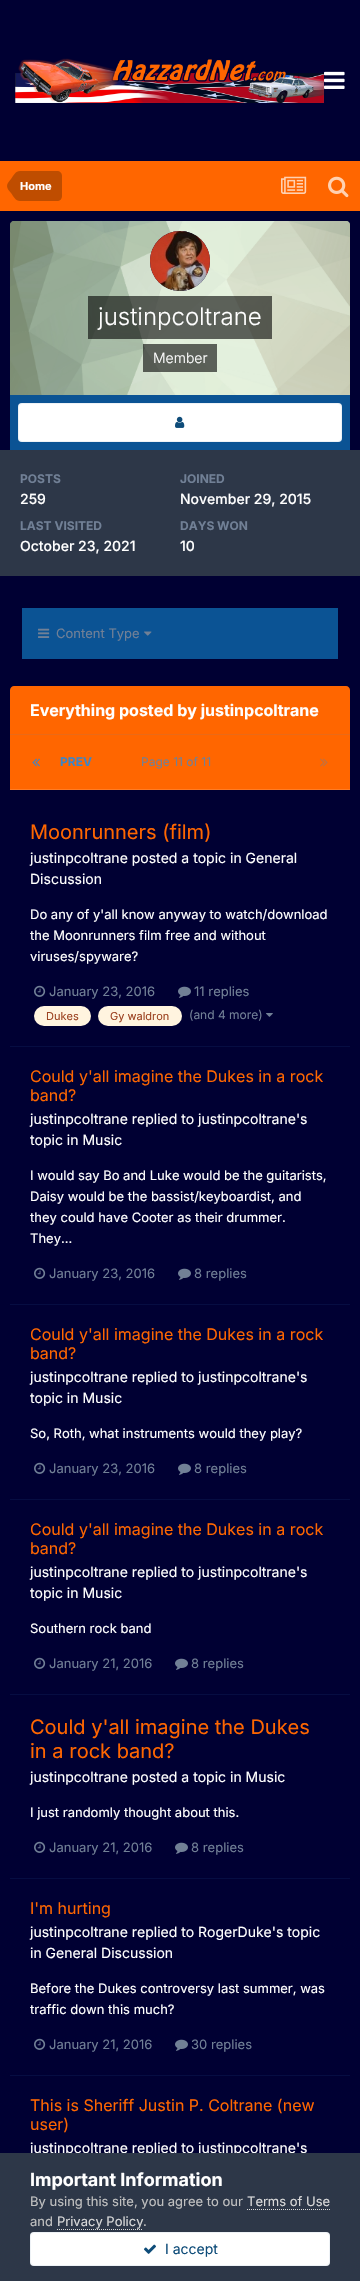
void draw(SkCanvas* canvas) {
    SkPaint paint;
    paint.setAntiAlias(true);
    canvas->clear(0xFF000033);
    canvas->drawImageRect(SkImages::DeferredFromEncodedData(SkData::MakeFromFileName("img1.png")), SkRect::MakeXYWH(15, 58, 309, 45), SkSamplingOptions());
    canvas->drawImageRect(SkImages::DeferredFromEncodedData(SkData::MakeFromFileName("img2.png")), SkRect::MakeXYWH(324, 71, 21, 18), SkSamplingOptions());
    paint.setColor(0xFFFF6600);
    canvas->drawRect(SkRect::MakeXYWH(0, 161, 360, 50), paint);
    paint.setColor(0xFFBF4D00);
    canvas->drawPath(SkPathBuilder().moveTo(20, 171).lineTo(57, 171).cubicTo(60, 171, 62, 173, 62, 176).lineTo(62, 196).cubicTo(62, 199, 60, 201, 57, 201).lineTo(20, 201).close().detach(), paint);
    canvas->drawPath(SkPathBuilder().moveTo(20, 186).lineTo(20, 201).cubicTo(15.5f, 201, 13.5f, 196.5f, 11, 193).cubicTo(9.5f, 191, 7, 189, 7, 186).close().moveTo(20, 186).lineTo(7, 186).cubicTo(7, 183, 9.5f, 181, 11, 179).cubicTo(13.5f, 175.5f, 15.5f, 171, 20, 171).close().detach(), paint);
    SkFont font1(fontMgr->matchFamilyStyle("Inter", SkFontStyle::Bold()), 11);
    font1.setSubpixel(true);
    paint.setColor(0xFFFFFFFF);
    canvas->drawString("Home", 20, 190, font1, paint);
    canvas->drawImageRect(SkImages::DeferredFromEncodedData(SkData::MakeFromFileName("img3.png")), SkRect::MakeXYWH(281, 176, 26, 18), SkSamplingOptions());
    canvas->drawImageRect(SkImages::DeferredFromEncodedData(SkData::MakeFromFileName("img4.png")), SkRect::MakeXYWH(328, 176, 21, 22), SkSamplingOptions());
    paint.setColor(0xFFC0FF99);
    canvas->drawPath(SkPathBuilder().moveTo(14, 221).lineTo(346, 221).cubicTo(348, 221, 350, 223, 350, 225).lineTo(350, 395).lineTo(10, 395).lineTo(10, 225).cubicTo(10, 223, 12, 221, 14, 221).close().detach(), paint);
    canvas->drawImageRect(SkImages::DeferredFromEncodedData(SkData::MakeFromFileName("img5.png")), SkRect::MakeXYWH(10, 221, 340, 174), SkSamplingOptions());
    paint.setColor(0xFF000033);
    canvas->drawCircle(180, 261, 30, paint);
    canvas->drawImageRect(SkImages::DeferredFromEncodedData(SkData::MakeFromFileName("img6.png")), SkRect::MakeXYWH(150, 231, 60, 60), SkSamplingOptions());
    paint.setColor(0x99000000);
    canvas->drawRect(SkRect::MakeXYWH(88, 296, 184, 43), paint);
    SkFont font2(fontMgr->matchFamilyStyle("Inter", SkFontStyle(300, SkFontStyle::kNormal_Width, SkFontStyle::kUpright_Slant)), 24);
    font2.setSubpixel(true);
    paint.setColor(0xFFFFFFFF);
    canvas->drawString("justinpcoltrane", 98, 325, font2, paint);
    paint.setColor(0x99000000);
    canvas->drawRect(SkRect::MakeXYWH(143, 344, 74, 28), paint);
    SkFont font3(fontMgr->matchFamilyStyle("Inter", SkFontStyle(300, SkFontStyle::kNormal_Width, SkFontStyle::kUpright_Slant)), 14);
    font3.setSubpixel(true);
    paint.setColor(0xFFFFFFFF);
    canvas->drawString("Member", 153, 363, font3, paint);
    paint.setColor(0xFF0B5394);
    canvas->drawRect(SkRect::MakeXYWH(10, 395, 340, 55), paint);
    paint.setColor(0xFFFFFFFF);
    canvas->drawRoundRect(SkRect::MakeXYWH(18, 403, 324, 39), 4, 4, paint);
    paint.setStyle(SkPaint::kStroke_Style);
    paint.setStrokeWidth(1);
    paint.setColor(0x120E4C79);
    canvas->drawRoundRect(SkRect::MakeXYWH(18.5f, 403.5f, 323, 38), 3.5f, 3.5f, paint);
    canvas->drawImageRect(SkImages::DeferredFromEncodedData(SkData::MakeFromFileName("img7.png")), SkRect::MakeXYWH(175, 416, 10, 12), SkSamplingOptions());
    paint.setStyle(SkPaint::kFill_Style);
    paint.setColor(0xFF2D3748);
    canvas->drawRect(SkRect::MakeXYWH(0, 450, 360, 126), paint);
    SkFont font4(fontMgr->matchFamilyStyle("Inter", SkFontStyle::Bold()), 12);
    font4.setSubpixel(true);
    paint.setColor(0xFF718096);
    canvas->drawString("POSTS", 20, 483, font4, paint);
    SkFont font5(fontMgr->matchFamilyStyle("Inter", SkFontStyle(500, SkFontStyle::kNormal_Width, SkFontStyle::kUpright_Slant)), 14);
    font5.setSubpixel(true);
    paint.setColor(0xFFFFFFFF);
    canvas->drawString("259", 20, 504, font5, paint);
    paint.setColor(0xFF718096);
    canvas->drawString("JOINED", 180, 483, font4, paint);
    paint.setColor(0xFFFFFFFF);
    canvas->drawString("November 29, 2015", 180, 504, font5, paint);
    paint.setColor(0xFF718096);
    canvas->drawString("LAST VISITED", 20, 530, font4, paint);
    paint.setColor(0xFFFFFFFF);
    canvas->drawString("October 23, 2021", 20, 551, font5, paint);
    paint.setColor(0xFF718096);
    canvas->drawString("DAYS WON", 180, 530, font4, paint);
    paint.setColor(0xFFFFFFFF);
    canvas->drawString("10", 180, 551, font5, paint);
    paint.setColor(0xFF0B5394);
    canvas->drawRect(SkRect::MakeXYWH(22, 608, 316, 51), paint);
    canvas->drawImageRect(SkImages::DeferredFromEncodedData(SkData::MakeFromFileName("img8.png")), SkRect::MakeXYWH(38, 628, 12, 10), SkSamplingOptions());
    SkFont font6(fontMgr->matchFamilyStyle("Inter", SkFontStyle::Normal()), 13);
    font6.setSubpixel(true);
    paint.setColor(0xFF718096);
    canvas->drawString("Content Type", 56, 638, font6, paint);
    canvas->drawImageRect(SkImages::DeferredFromEncodedData(SkData::MakeFromFileName("img9.png")), SkRect::MakeXYWH(144, 631, 8, 5), SkSamplingOptions());
    paint.setColor(0xFFFF6600);
    canvas->drawPath(SkPathBuilder().moveTo(14, 686).lineTo(346, 686).cubicTo(348, 686, 350, 688, 350, 690).lineTo(350, 735).lineTo(10, 735).lineTo(10, 690).cubicTo(10, 688, 12, 686, 14, 686).close().detach(), paint);
    paint.setColor(0xFFEA6A17);
    canvas->drawRect(SkRect::MakeXYWH(10, 734, 340, 1), paint);
    SkFont font7(fontMgr->matchFamilyStyle("Inter", SkFontStyle::Bold()), 16);
    font7.setSubpixel(true);
    paint.setColor(0xFFFFFFFF);
    canvas->drawString("Everything posted by justinpcoltrane", 30, 716, font7, paint);
    paint.setColor(0xFFFF6600);
    canvas->drawRect(SkRect::MakeXYWH(10, 735, 340, 54), paint);
    paint.setColor(0xFFFF7D26);
    canvas->drawRect(SkRect::MakeXYWH(10, 789, 340, 1), paint);
    canvas->drawImageRect(SkImages::DeferredFromEncodedData(SkData::MakeFromFileName("img10.png")), SkRect::MakeXYWH(32, 758, 8, 9), SkSamplingOptions());
    paint.setColor(0xFF3D85C6);
    canvas->drawString("PREV", 60, 766, font4, paint);
    SkFont font8(fontMgr->matchFamilyStyle("Inter", SkFontStyle::Normal()), 12);
    font8.setSubpixel(true);
    paint.setColor(0xFF718096);
    canvas->drawString("Page 11 of 11", 141, 766, font8, paint);
    canvas->drawImageRect(SkImages::DeferredFromEncodedData(SkData::MakeFromFileName("img11.png")), SkRect::MakeXYWH(320, 758, 8, 9), SkSamplingOptions());
    paint.setColor(0xFF060D42);
    canvas->drawRect(SkRect::MakeXYWH(10, 1046, 340, 1), paint);
    SkFont font9(fontMgr->matchFamilyStyle("Inter", SkFontStyle::Normal()), 20);
    font9.setSubpixel(true);
    paint.setColor(0xFFFF6600);
    canvas->drawString("Moonrunners (film)", 30, 839, font9, paint);
    SkFont font10(fontMgr->matchFamilyStyle("Inter", SkFontStyle::Normal()), 14);
    font10.setSubpixel(true);
    paint.setColor(0xFFFFFFFF);
    canvas->drawString("justinpcoltrane posted a topic in General", 30, 863, font10, paint);
    canvas->drawString("Discussion", 30, 884, font10, paint);
    canvas->drawString("Do any of y'all know anyway to watch/download", 30, 919, font6, paint);
    canvas->drawString("the Moonrunners film free and without", 30, 940, font6, paint);
    canvas->drawString("viruses/spyware?", 30, 961, font6, paint);
    canvas->drawImageRect(SkImages::DeferredFromEncodedData(SkData::MakeFromFileName("img12.png")), SkRect::MakeXYWH(34, 985, 12, 12), SkSamplingOptions());
    paint.setColor(0xFF718096);
    canvas->drawString("January 23, 2016", 49, 996, font6, paint);
    canvas->drawImageRect(SkImages::DeferredFromEncodedData(SkData::MakeFromFileName("img13.png")), SkRect::MakeXYWH(178, 986, 13, 12), SkSamplingOptions());
    canvas->drawString("11 replies", 194, 996, font6, paint);
    paint.setColor(0xFFFFF4DF);
    canvas->drawRoundRect(SkRect::MakeXYWH(34, 1006, 57, 20), 10, 10, paint);
    SkFont font11(fontMgr->matchFamilyStyle("Inter", SkFontStyle::Normal()), 11);
    font11.setSubpixel(true);
    paint.setColor(0xFF9C4221);
    canvas->drawString("Dukes", 46, 1020, font11, paint);
    paint.setColor(0xFFFFF4DF);
    canvas->drawRoundRect(SkRect::MakeXYWH(98, 1006, 84, 20), 10, 10, paint);
    paint.setColor(0xFF9C4221);
    canvas->drawString("Gy waldron", 110, 1020, font11, paint);
    paint.setColor(0xFF718096);
    canvas->drawString("(and 4 more)", 189, 1019, font8, paint);
    canvas->drawImageRect(SkImages::DeferredFromEncodedData(SkData::MakeFromFileName("img14.png")), SkRect::MakeXYWH(266, 1013, 7, 4), SkSamplingOptions());
    paint.setColor(0xFF060D42);
    canvas->drawRect(SkRect::MakeXYWH(10, 1304, 340, 1), paint);
    SkFont font12(fontMgr->matchFamilyStyle("Inter", SkFontStyle::Normal()), 16);
    font12.setSubpixel(true);
    paint.setColor(0xFFFF6600);
    canvas->drawString("Could y'all imagine the Dukes in a rock", 30, 1082, font12, paint);
    canvas->drawString("band?", 30, 1101, font12, paint);
    paint.setColor(0xFFFFFFFF);
    canvas->drawString("justinpcoltrane replied to justinpcoltrane's", 30, 1124, font10, paint);
    canvas->drawString("topic in Music", 30, 1145, font10, paint);
    canvas->drawString("I would say Bo and Luke would be the guitarists,", 30, 1180, font6, paint);
    canvas->drawString("Daisy would be the bassist/keyboardist, and", 30, 1201, font6, paint);
    canvas->drawString("they could have Cooter as their drummer.", 30, 1222, font6, paint);
    canvas->drawString("They...", 30, 1243, font6, paint);
    canvas->drawImageRect(SkImages::DeferredFromEncodedData(SkData::MakeFromFileName("img12.png")), SkRect::MakeXYWH(34, 1267, 12, 12), SkSamplingOptions());
    paint.setColor(0xFF718096);
    canvas->drawString("January 23, 2016", 49, 1278, font6, paint);
    canvas->drawImageRect(SkImages::DeferredFromEncodedData(SkData::MakeFromFileName("img13.png")), SkRect::MakeXYWH(178, 1268, 13, 12), SkSamplingOptions());
    canvas->drawString("8 replies", 194, 1278, font6, paint);
    paint.setColor(0xFF060D42);
    canvas->drawRect(SkRect::MakeXYWH(10, 1499, 340, 1), paint);
    paint.setColor(0xFFFF6600);
    canvas->drawString("Could y'all imagine the Dukes in a rock", 30, 1340, font12, paint);
    canvas->drawString("band?", 30, 1359, font12, paint);
    paint.setColor(0xFFFFFFFF);
    canvas->drawString("justinpcoltrane replied to justinpcoltrane's", 30, 1382, font10, paint);
    canvas->drawString("topic in Music", 30, 1403, font10, paint);
    canvas->drawString("So, Roth, what instruments would they play?", 30, 1438, font6, paint);
    canvas->drawImageRect(SkImages::DeferredFromEncodedData(SkData::MakeFromFileName("img12.png")), SkRect::MakeXYWH(34, 1462, 12, 12), SkSamplingOptions());
    paint.setColor(0xFF718096);
    canvas->drawString("January 23, 2016", 49, 1473, font6, paint);
    canvas->drawImageRect(SkImages::DeferredFromEncodedData(SkData::MakeFromFileName("img13.png")), SkRect::MakeXYWH(178, 1463, 13, 12), SkSamplingOptions());
    canvas->drawString("8 replies", 194, 1473, font6, paint);
    paint.setColor(0xFF060D42);
    canvas->drawRect(SkRect::MakeXYWH(10, 1694, 340, 1), paint);
    paint.setColor(0xFFFF6600);
    canvas->drawString("Could y'all imagine the Dukes in a rock", 30, 1535, font12, paint);
    canvas->drawString("band?", 30, 1554, font12, paint);
    paint.setColor(0xFFFFFFFF);
    canvas->drawString("justinpcoltrane replied to justinpcoltrane's", 30, 1577, font10, paint);
    canvas->drawString("topic in Music", 30, 1598, font10, paint);
    canvas->drawString("Southern rock band", 30, 1633, font6, paint);
    canvas->drawImageRect(SkImages::DeferredFromEncodedData(SkData::MakeFromFileName("img12.png")), SkRect::MakeXYWH(34, 1657, 12, 12), SkSamplingOptions());
    paint.setColor(0xFF718096);
    canvas->drawString("January 21, 2016", 49, 1668, font6, paint);
    canvas->drawImageRect(SkImages::DeferredFromEncodedData(SkData::MakeFromFileName("img13.png")), SkRect::MakeXYWH(175, 1658, 13, 12), SkSamplingOptions());
    canvas->drawString("8 replies", 191, 1668, font6, paint);
    paint.setColor(0xFF060D42);
    canvas->drawRect(SkRect::MakeXYWH(10, 1878, 340, 1), paint);
    paint.setColor(0xFFFF6600);
    canvas->drawString("Could y'all imagine the Dukes", 30, 1734, font9, paint);
    canvas->drawString("in a rock band?", 30, 1758, font9, paint);
    paint.setColor(0xFFFFFFFF);
    canvas->drawString("justinpcoltrane posted a topic in Music", 30, 1782, font10, paint);
    canvas->drawString("I just randomly thought about this.", 30, 1817, font6, paint);
    canvas->drawImageRect(SkImages::DeferredFromEncodedData(SkData::MakeFromFileName("img12.png")), SkRect::MakeXYWH(34, 1841, 12, 12), SkSamplingOptions());
    paint.setColor(0xFF718096);
    canvas->drawString("January 21, 2016", 49, 1852, font6, paint);
    canvas->drawImageRect(SkImages::DeferredFromEncodedData(SkData::MakeFromFileName("img13.png")), SkRect::MakeXYWH(175, 1842, 13, 12), SkSamplingOptions());
    canvas->drawString("8 replies", 191, 1852, font6, paint);
    paint.setColor(0xFF060D42);
    canvas->drawRect(SkRect::MakeXYWH(10, 2075, 340, 1), paint);
    paint.setColor(0xFFFF6600);
    canvas->drawString("I'm hurting", 30, 1914, font12, paint);
    paint.setColor(0xFFFFFFFF);
    canvas->drawString("justinpcoltrane replied to RogerDuke's topic", 30, 1937, font10, paint);
    canvas->drawString("in General Discussion", 30, 1958, font10, paint);
    canvas->drawString("Before the Dukes controversy last summer, was", 30, 1993, font6, paint);
    canvas->drawString("traffic down this much?", 30, 2014, font6, paint);
    canvas->drawImageRect(SkImages::DeferredFromEncodedData(SkData::MakeFromFileName("img12.png")), SkRect::MakeXYWH(34, 2038, 12, 12), SkSamplingOptions());
    paint.setColor(0xFF718096);
    canvas->drawString("January 21, 2016", 49, 2049, font6, paint);
    canvas->drawImageRect(SkImages::DeferredFromEncodedData(SkData::MakeFromFileName("img13.png")), SkRect::MakeXYWH(175, 2039, 13, 12), SkSamplingOptions());
    canvas->drawString("30 replies", 191, 2049, font6, paint);
    paint.setColor(0xFFFF6600);
    canvas->drawString("This is Sheriff Justin P. Coltrane (new", 30, 2111, font12, paint);
    canvas->drawString("user)", 30, 2130, font12, paint);
    paint.setColor(0xFFFFFFFF);
    canvas->drawString("justinpcoltrane replied to justinpcoltrane's", 30, 2153, font10, paint);
    paint.setColor(0xFF2D3748);
    canvas->drawRect(SkRect::MakeXYWH(0, 2153, 360, 128), paint);
    SkFont font13(fontMgr->matchFamilyStyle("Inter", SkFontStyle::Bold()), 18);
    font13.setSubpixel(true);
    paint.setColor(0xFFFFFFFF);
    canvas->drawString("Important Information", 30, 2186, font13, paint);
    paint.setColor(0xFFC0C0C0);
    canvas->drawString("By using this site, you agree to our", 30, 2206, font6, paint);
    paint.setColor(0xFFDADADA);
    canvas->drawString("Terms of Use", 247, 2206, font6, paint);
    paint.setStyle(SkPaint::kStroke_Style);
    paint.setPathEffect(SkDashPathEffect::Make({{1, 1}}, 0));
    canvas->drawPath(SkPathBuilder().moveTo(247, 2209.5f).lineTo(330, 2209.5f).detach(), paint);
    paint.setPathEffect(nullptr);
    paint.setStyle(SkPaint::kFill_Style);
    paint.setColor(0xFFC0C0C0);
    canvas->drawString("and", 30, 2226, font6, paint);
    paint.setColor(0xFFDADADA);
    canvas->drawString("Privacy Policy", 57, 2226, font6, paint);
    paint.setStyle(SkPaint::kStroke_Style);
    paint.setPathEffect(SkDashPathEffect::Make({{1, 1}}, 0));
    canvas->drawPath(SkPathBuilder().moveTo(57, 2229.5f).lineTo(143, 2229.5f).detach(), paint);
    paint.setPathEffect(nullptr);
    paint.setStyle(SkPaint::kFill_Style);
    paint.setColor(0xFFC0C0C0);
    canvas->drawString(".", 143, 2226, font6, paint);
    paint.setColor(0xFFFFFFFF);
    canvas->drawRoundRect(SkRect::MakeXYWH(30, 2232, 300, 34), 4, 4, paint);
    paint.setStyle(SkPaint::kStroke_Style);
    paint.setColor(0x120E4C79);
    canvas->drawRoundRect(SkRect::MakeXYWH(30.5f, 2232.5f, 299, 33), 3.5f, 3.5f, paint);
    canvas->drawImageRect(SkImages::DeferredFromEncodedData(SkData::MakeFromFileName("img15.png")), SkRect::MakeXYWH(144, 2244, 12, 10), SkSamplingOptions());
    paint.setStyle(SkPaint::kFill_Style);
    paint.setColor(0xFF0E4C79);
    canvas->drawString("I accept", 165, 2254, font10, paint);
}
